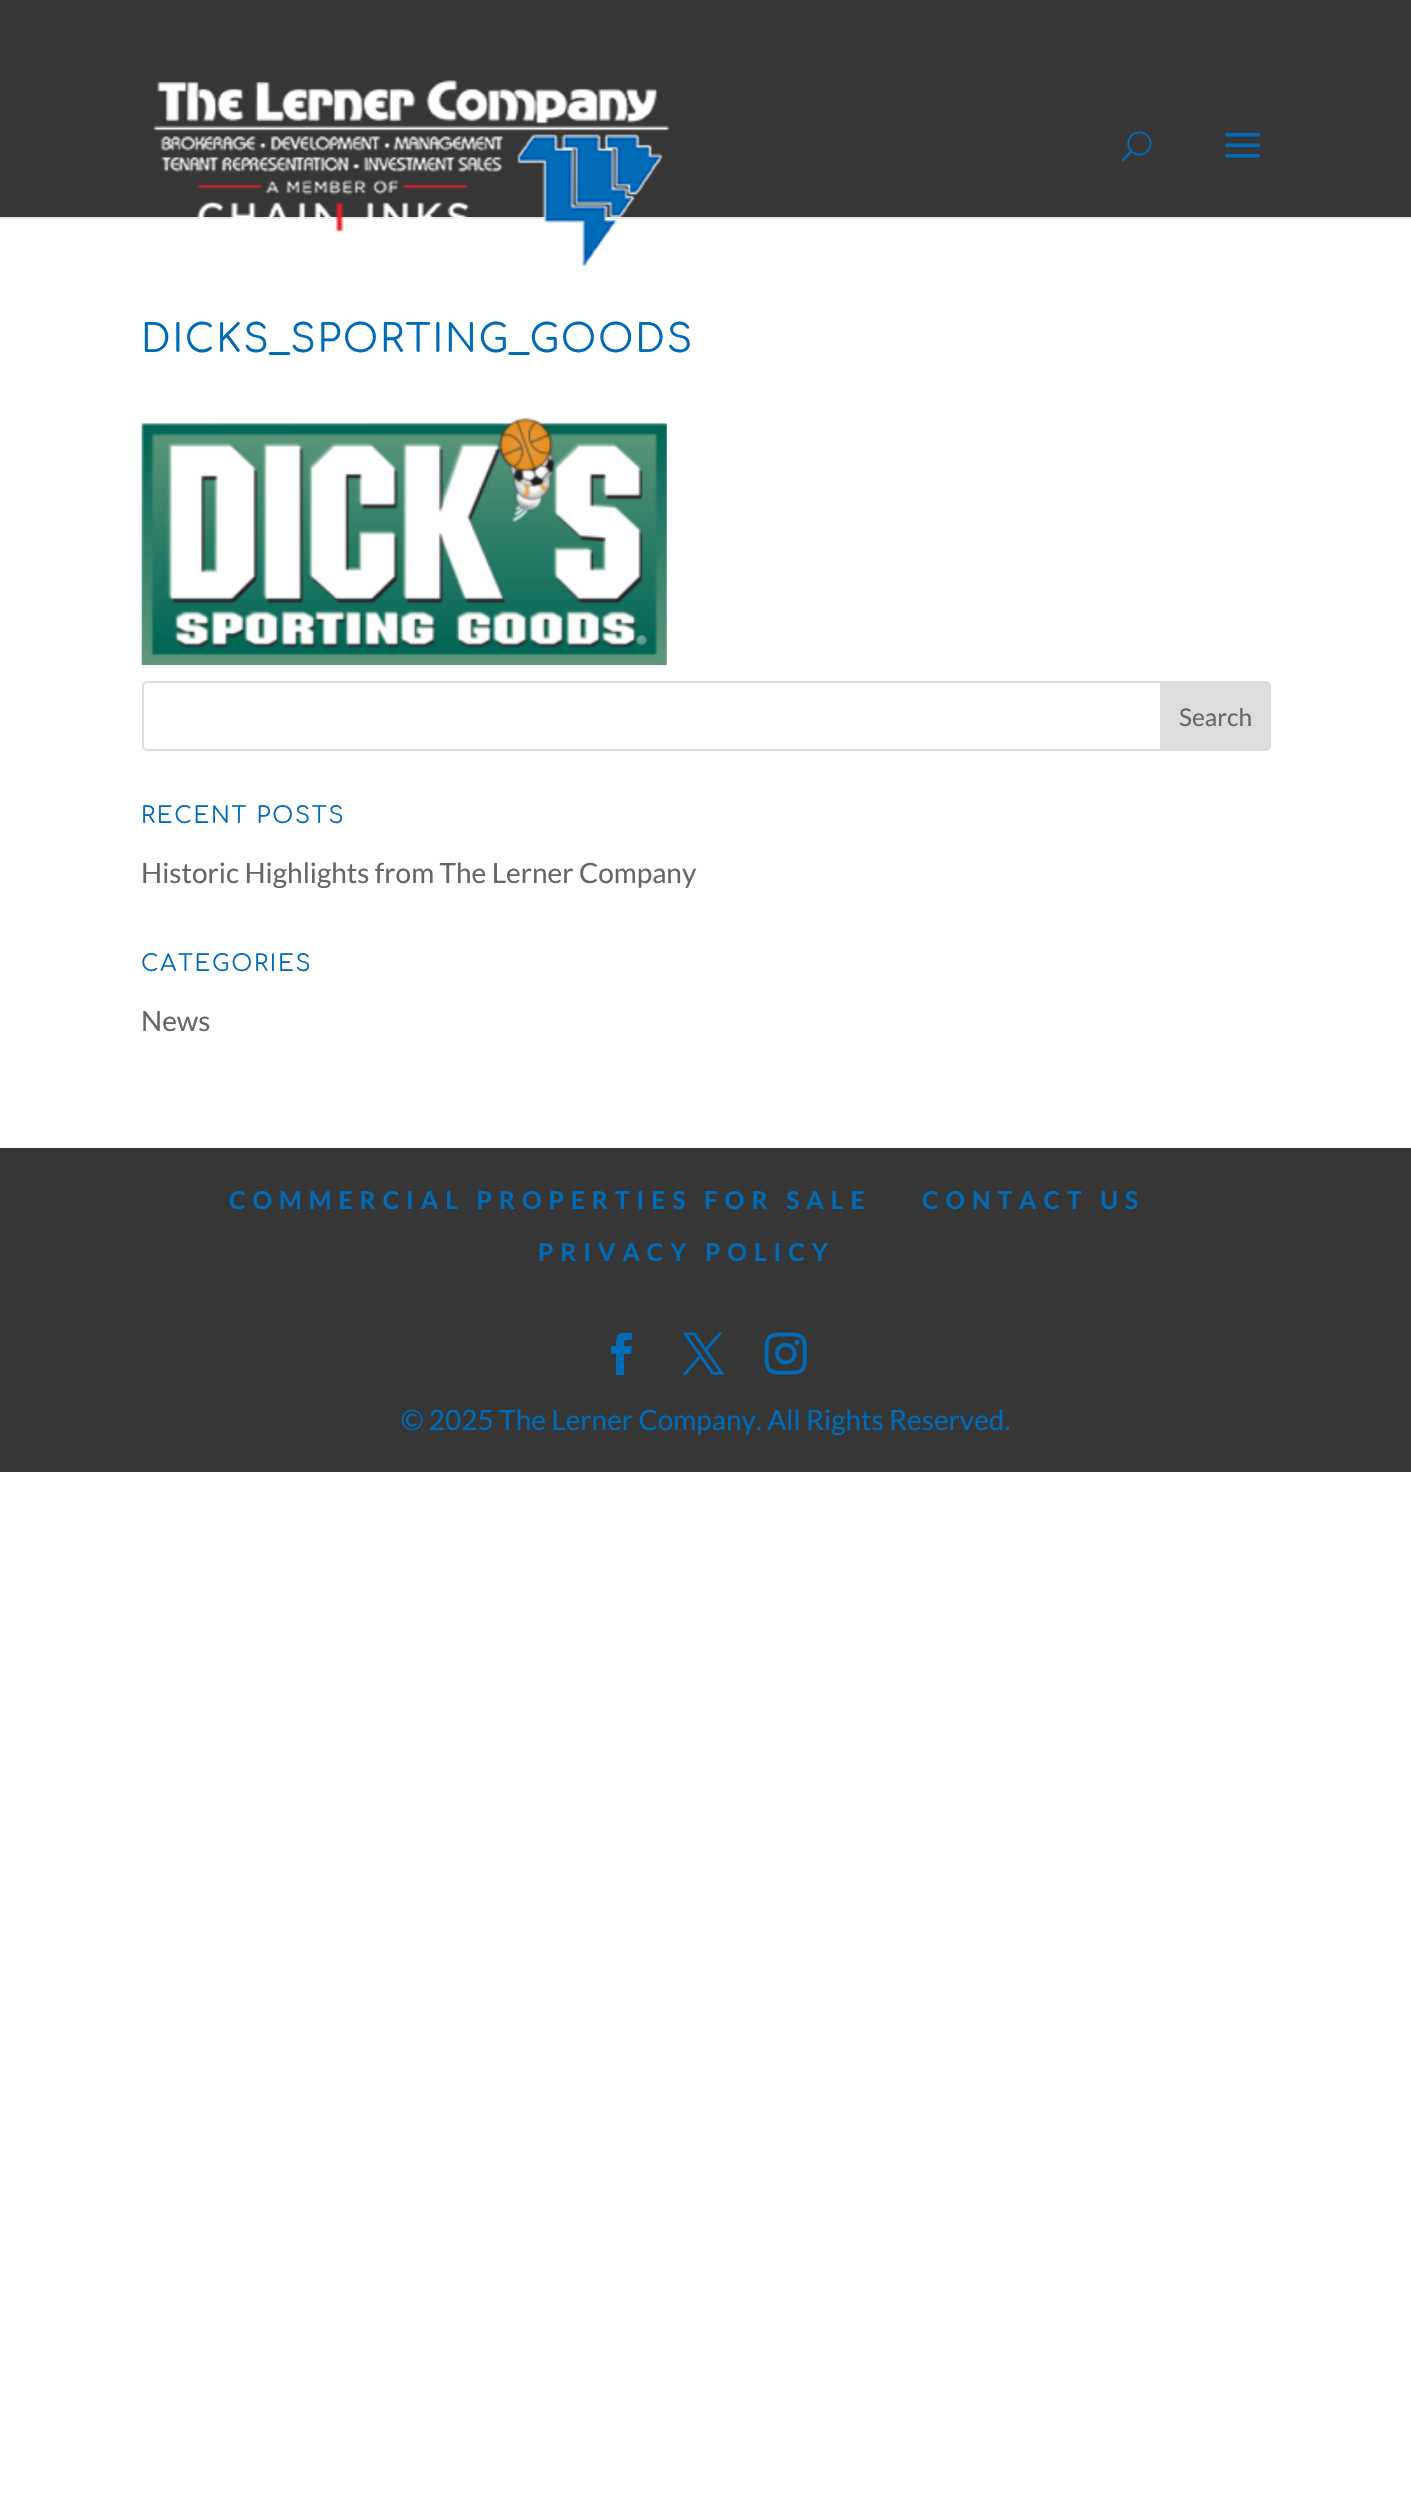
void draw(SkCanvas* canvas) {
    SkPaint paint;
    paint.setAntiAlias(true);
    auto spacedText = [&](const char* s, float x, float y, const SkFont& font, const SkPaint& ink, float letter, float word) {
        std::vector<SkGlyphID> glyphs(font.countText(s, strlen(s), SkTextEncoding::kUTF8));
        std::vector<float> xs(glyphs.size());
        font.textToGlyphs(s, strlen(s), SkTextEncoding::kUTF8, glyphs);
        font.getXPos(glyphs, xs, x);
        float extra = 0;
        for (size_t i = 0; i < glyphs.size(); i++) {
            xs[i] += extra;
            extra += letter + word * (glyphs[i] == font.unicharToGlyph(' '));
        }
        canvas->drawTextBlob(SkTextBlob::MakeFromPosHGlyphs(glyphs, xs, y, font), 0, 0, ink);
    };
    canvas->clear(0xFFFFFFFF);
    paint.setColor(0xFF363636);
    canvas->drawRect(SkRect::MakeXYWH(0, 0, 1411, 217), paint);
    paint.setColor(0xFFE6E6E6);
    canvas->drawRect(SkRect::MakeXYWH(0, 217, 1411, 2), paint);
    canvas->drawImageRect(SkImages::DeferredFromEncodedData(SkData::MakeFromFileName("img1.png")), SkRect::MakeXYWH(153, 80, 517, 186), SkSamplingOptions());
    canvas->drawImageRect(SkImages::DeferredFromEncodedData(SkData::MakeFromFileName("img2.png")), SkRect::MakeXYWH(1121, 131, 31, 31), SkSamplingOptions());
    canvas->drawImageRect(SkImages::DeferredFromEncodedData(SkData::MakeFromFileName("img3.png")), SkRect::MakeXYWH(1225, 133, 35, 25), SkSamplingOptions());
    SkFont font1(fontMgr->matchFamilyStyle("Comfortaa", SkFontStyle::Normal()), 38.5f);
    font1.setSubpixel(true);
    paint.setColor(0xFF006BB7);
    spacedText("DICKS_SPORTING_GOODS", 141, 352, font1, paint, 1.75f, 0);
    canvas->drawImageRect(SkImages::DeferredFromEncodedData(SkData::MakeFromFileName("img4.png")), SkRect::MakeXYWH(141, 417, 526, 248), SkSamplingOptions());
    paint.setStyle(SkPaint::kStroke_Style);
    paint.setStrokeWidth(2);
    paint.setColor(0xFFDDDDDD);
    canvas->drawRoundRect(SkRect::MakeXYWH(143, 682, 1127, 68), 4, 4, paint);
    paint.setStyle(SkPaint::kFill_Style);
    canvas->drawPath(SkPathBuilder().moveTo(1161, 682).lineTo(1266, 682).cubicTo(1268, 682, 1270, 684, 1270, 686).lineTo(1270, 746).cubicTo(1270, 748, 1268, 750, 1266, 750).lineTo(1161, 750).close().detach(), paint);
    paint.setStyle(SkPaint::kStroke_Style);
    canvas->drawPath(SkPathBuilder().moveTo(1161, 682).lineTo(1266, 682).cubicTo(1268, 682, 1270, 684, 1270, 686).lineTo(1270, 746).cubicTo(1270, 748, 1268, 750, 1266, 750).lineTo(1161, 750).close().detach(), paint);
    SkFont font2(fontMgr->matchFamilyStyle("Lato", SkFontStyle::Normal()), 24.5f);
    font2.setSubpixel(true);
    paint.setStyle(SkPaint::kFill_Style);
    paint.setColor(0xFF666666);
    canvas->drawString("Search", 1179, 726, font2, paint);
    SkFont font3(fontMgr->matchFamilyStyle("Comfortaa", SkFontStyle::Normal()), 22.75f);
    font3.setSubpixel(true);
    paint.setColor(0xFF006BB7);
    spacedText("RECENT POSTS", 141, 823, font3, paint, 1.75f, 0);
    SkFont font4(fontMgr->matchFamilyStyle("Lato", SkFontStyle::Normal()), 28);
    font4.setSubpixel(true);
    paint.setColor(0xFF666666);
    canvas->drawString("Historic Highlights from The Lerner Company", 141, 883, font4, paint);
    paint.setColor(0xFF006BB7);
    spacedText("CATEGORIES", 141, 971, font3, paint, 1.75f, 0);
    paint.setColor(0xFF666666);
    canvas->drawString("News", 141, 1031, font4, paint);
    paint.setColor(0xFF363636);
    canvas->drawRect(SkRect::MakeXYWH(0, 1148, 1411, 324), paint);
    SkFont font5(fontMgr->matchFamilyStyle("Lato", SkFontStyle::Bold()), 24.5f);
    font5.setSubpixel(true);
    paint.setColor(0xFF006BB7);
    spacedText("COMMERCIAL PROPERTIES FOR SALE", 229, 1209, font5, paint, 7, 0);
    spacedText("CONTACT US", 922, 1209, font5, paint, 7, 0);
    spacedText("PRIVACY POLICY", 538, 1261, font5, paint, 7, 0);
    canvas->drawPath(SkPathBuilder().moveTo(616, 1375).lineTo(624, 1375).lineTo(624, 1354).lineTo(631, 1354).lineTo(632, 1346).lineTo(624, 1346).cubicTo(624, 1339, 624, 1340, 632, 1340).lineTo(632, 1333).cubicTo(618, 1333, 616, 1332, 616, 1346).lineTo(611, 1346).lineTo(611, 1354).lineTo(616, 1354).close().detach(), paint);
    canvas->drawImageRect(SkImages::DeferredFromEncodedData(SkData::MakeFromFileName("img5.png")), SkRect::MakeXYWH(682, 1332, 43, 43), SkSamplingOptions());
    canvas->drawImageRect(SkImages::DeferredFromEncodedData(SkData::MakeFromFileName("img6.png")), SkRect::MakeXYWH(764, 1332, 43, 43), SkSamplingOptions());
    canvas->drawString("© 2025 The Lerner Company. All Rights Reserved.", 401, 1430, font4, paint);
}
